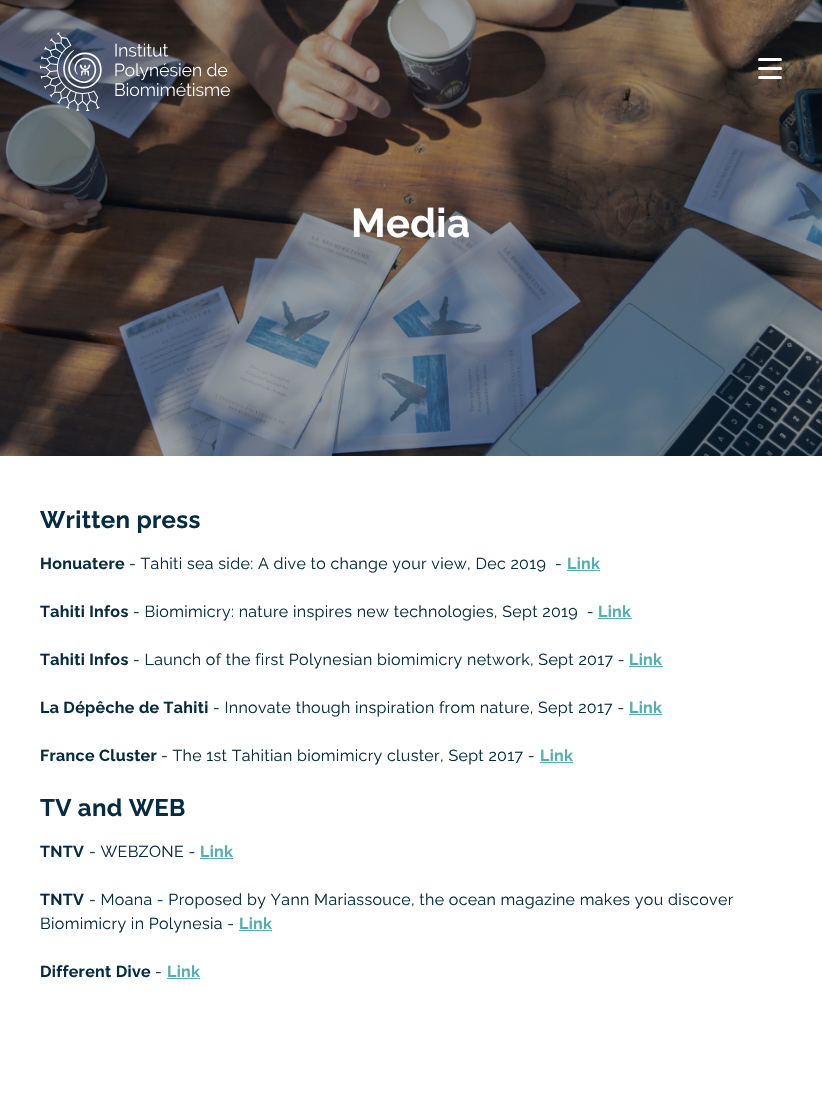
void draw(SkCanvas* canvas) {
    SkPaint paint;
    paint.setAntiAlias(true);
    auto spacedText = [&](const char* s, float x, float y, const SkFont& font, const SkPaint& ink, float letter, float word) {
        std::vector<SkGlyphID> glyphs(font.countText(s, strlen(s), SkTextEncoding::kUTF8));
        std::vector<float> xs(glyphs.size());
        font.textToGlyphs(s, strlen(s), SkTextEncoding::kUTF8, glyphs);
        font.getXPos(glyphs, xs, x);
        float extra = 0;
        for (size_t i = 0; i < glyphs.size(); i++) {
            xs[i] += extra;
            extra += letter + word * (glyphs[i] == font.unicharToGlyph(' '));
        }
        canvas->drawTextBlob(SkTextBlob::MakeFromPosHGlyphs(glyphs, xs, y, font), 0, 0, ink);
    };
    canvas->clear(0xFFFFFFFF);
    canvas->drawImageRect(SkImages::DeferredFromEncodedData(SkData::MakeFromFileName("img1.png")), SkRect::MakeXYWH(0, 0, 822, 456), SkSamplingOptions());
    canvas->drawImageRect(SkImages::DeferredFromEncodedData(SkData::MakeFromFileName("img2.png")), SkRect::MakeXYWH(40, 32, 190, 79), SkSamplingOptions());
    paint.setColor(0xFFFFFFFF);
    canvas->drawRoundRect(SkRect::MakeXYWH(758, 58, 24, 3), 1.5f, 1.5f, paint);
    canvas->drawRoundRect(SkRect::MakeXYWH(758, 67, 24, 3), 1.5f, 1.5f, paint);
    canvas->drawRoundRect(SkRect::MakeXYWH(758, 76, 24, 3), 1.5f, 1.5f, paint);
    SkFont font1(fontMgr->matchFamilyStyle("Raleway", SkFontStyle::Bold()), 40);
    font1.setSubpixel(true);
    spacedText("Media", 351, 237, font1, paint, 0.33f, 0);
    SkFont font2(fontMgr->matchFamilyStyle("Raleway", SkFontStyle::Bold()), 24);
    font2.setSubpixel(true);
    paint.setColor(0xFF052C43);
    spacedText("Written press", 40, 528, font2, paint, 0.33f, 0);
    SkFont font3(fontMgr->matchFamilyStyle("Raleway", SkFontStyle::Bold()), 16);
    font3.setSubpixel(true);
    spacedText("Honuatere", 40, 569, font3, paint, 0.33f, 0);
    SkFont font4(fontMgr->matchFamilyStyle("Raleway", SkFontStyle::Normal()), 16);
    font4.setSubpixel(true);
    spacedText("- Tahiti sea side: A dive to change your view, Dec 2019  -", 129, 569, font4, paint, 0.33f, 0);
    paint.setColor(0xFF53B0AE);
    spacedText("Link", 567, 569, font3, paint, 0.33f, 0);
    canvas->drawRect(SkRect::MakeXYWH(567, 570, 33, 1), paint);
    paint.setColor(0xFF052C43);
    spacedText("Tahiti Infos", 40, 617, font3, paint, 0.33f, 0);
    spacedText("- Biomimicry: nature inspires new technologies, Sept 2019  -", 133, 617, font4, paint, 0.33f, 0);
    paint.setColor(0xFF53B0AE);
    spacedText("Link", 598, 617, font3, paint, 0.33f, 0);
    canvas->drawRect(SkRect::MakeXYWH(598, 618, 34, 1), paint);
    paint.setColor(0xFF052C43);
    spacedText("Tahiti Infos", 40, 665, font3, paint, 0.33f, 0);
    spacedText("- Launch of the first Polynesian biomimicry network, Sept 2017 -", 133, 665, font4, paint, 0.33f, 0);
    paint.setColor(0xFF53B0AE);
    spacedText("Link", 629, 665, font3, paint, 0.33f, 0);
    canvas->drawRect(SkRect::MakeXYWH(629, 666, 34, 1), paint);
    paint.setColor(0xFF052C43);
    spacedText("La Dépêche de Tahiti", 40, 713, font3, paint, 0.33f, 0);
    spacedText("- Innovate though inspiration from nature, Sept 2017 -", 213, 713, font4, paint, 0.33f, 0);
    paint.setColor(0xFF53B0AE);
    spacedText("Link", 629, 713, font3, paint, 0.33f, 0);
    canvas->drawRect(SkRect::MakeXYWH(629, 714, 33, 1), paint);
    paint.setColor(0xFF052C43);
    spacedText("France Cluster", 40, 761, font3, paint, 0.33f, 0);
    spacedText("- The 1st Tahitian biomimicry cluster, Sept 2017 -", 161, 761, font4, paint, 0.33f, 0);
    paint.setColor(0xFF53B0AE);
    spacedText("Link", 540, 761, font3, paint, 0.33f, 0);
    canvas->drawRect(SkRect::MakeXYWH(540, 762, 33, 1), paint);
    paint.setColor(0xFF052C43);
    spacedText("TV and WEB", 40, 816, font2, paint, 0.33f, 0);
    spacedText("TNTV", 40, 857, font3, paint, 0.33f, 0);
    spacedText("- WEBZONE -", 89, 857, font4, paint, 0.33f, 0);
    paint.setColor(0xFF53B0AE);
    spacedText("Link", 200, 857, font3, paint, 0.33f, 0);
    canvas->drawRect(SkRect::MakeXYWH(200, 858, 33, 1), paint);
    paint.setColor(0xFF052C43);
    spacedText("TNTV", 40, 905, font3, paint, 0.33f, 0);
    spacedText("- Moana - Proposed by Yann Mariassouce, the ocean magazine makes you discover", 89, 905, font4, paint, 0.33f, 0);
    spacedText("Biomimicry in Polynesia -", 40, 929, font4, paint, 0.33f, 0);
    paint.setColor(0xFF53B0AE);
    spacedText("Link", 239, 929, font3, paint, 0.33f, 0);
    canvas->drawRect(SkRect::MakeXYWH(239, 930, 33, 1), paint);
    paint.setColor(0xFF052C43);
    spacedText("Different Dive", 40, 977, font3, paint, 0.33f, 0);
    spacedText("-", 155, 977, font4, paint, 0.33f, 0);
    paint.setColor(0xFF53B0AE);
    spacedText("Link", 167, 977, font3, paint, 0.33f, 0);
    canvas->drawRect(SkRect::MakeXYWH(167, 978, 33, 1), paint);
}
